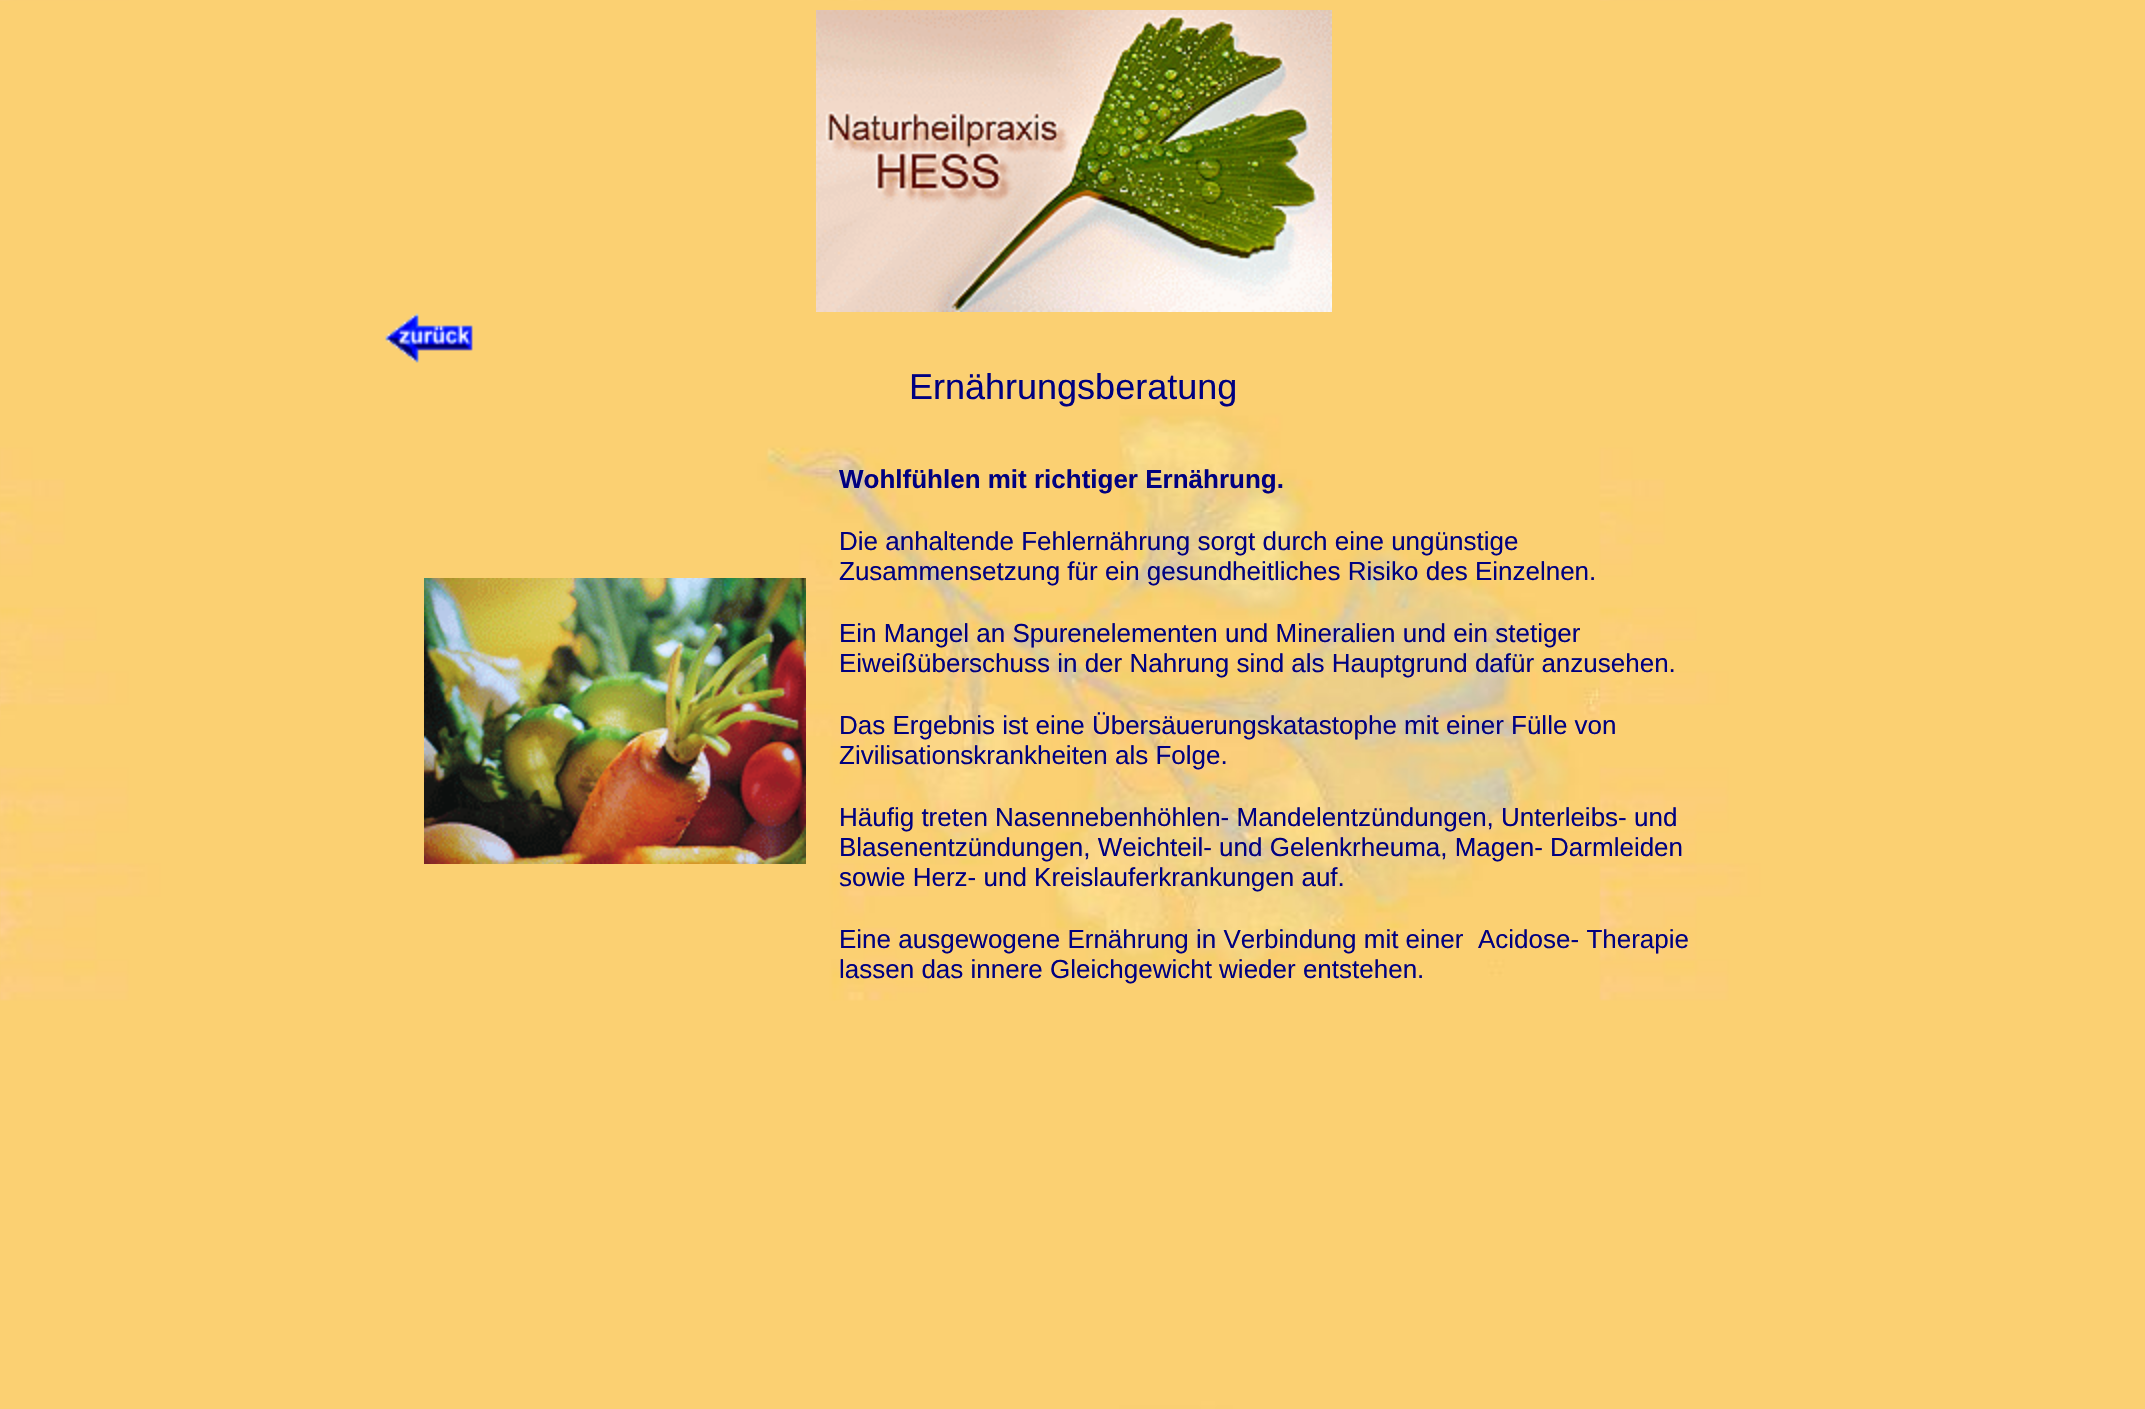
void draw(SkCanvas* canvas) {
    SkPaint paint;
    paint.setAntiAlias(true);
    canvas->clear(0xFFFFFFFF);
    canvas->drawImageRect(SkImages::DeferredFromEncodedData(SkData::MakeFromFileName("img1.png")), SkRect::MakeXYWH(0, 0, 2145, 1409), SkSamplingOptions());
    canvas->drawImageRect(SkImages::DeferredFromEncodedData(SkData::MakeFromFileName("img2.png")), SkRect::MakeXYWH(816, 10, 516, 302), SkSamplingOptions());
    canvas->drawImageRect(SkImages::DeferredFromEncodedData(SkData::MakeFromFileName("img3.png")), SkRect::MakeXYWH(385, 313, 88, 50), SkSamplingOptions());
    SkFont font1(fontMgr->matchFamilyStyle("Liberation Sans", SkFontStyle::Normal()), 36);
    font1.setSubpixel(true);
    paint.setColor(0xFF000080);
    canvas->drawString("Ernährungsberatung", 909, 399, font1, paint);
    canvas->drawImageRect(SkImages::DeferredFromEncodedData(SkData::MakeFromFileName("img4.png")), SkRect::MakeXYWH(424, 578, 382, 286), SkSamplingOptions());
    SkFont font2(fontMgr->matchFamilyStyle("Liberation Sans", SkFontStyle::Bold()), 26);
    font2.setSubpixel(true);
    canvas->drawString("Wohlfühlen mit richtiger Ernährung.", 839, 488, font2, paint);
    SkFont font3(fontMgr->matchFamilyStyle("Liberation Sans", SkFontStyle::Normal()), 26);
    font3.setSubpixel(true);
    canvas->drawString("Die anhaltende Fehlernährung sorgt durch eine ungünstige", 839, 550, font3, paint);
    canvas->drawString("Zusammensetzung für ein gesundheitliches Risiko des Einzelnen.", 839, 580, font3, paint);
    canvas->drawString("Ein Mangel an Spurenelementen und Mineralien und ein stetiger", 839, 642, font3, paint);
    canvas->drawString("Eiweißüberschuss in der Nahrung sind als Hauptgrund dafür anzusehen.", 839, 672, font3, paint);
    canvas->drawString("Das Ergebnis ist eine Übersäuerungskatastophe mit einer Fülle von", 839, 734, font3, paint);
    canvas->drawString("Zivilisationskrankheiten als Folge.", 839, 764, font3, paint);
    canvas->drawString("Häufig treten Nasennebenhöhlen- Mandelentzündungen, Unterleibs- und", 839, 826, font3, paint);
    canvas->drawString("Blasenentzündungen, Weichteil- und Gelenkrheuma, Magen- Darmleiden", 839, 856, font3, paint);
    canvas->drawString("sowie Herz- und Kreislauferkrankungen auf.", 839, 886, font3, paint);
    canvas->drawString("Eine ausgewogene Ernährung in Verbindung mit einer", 839, 948, font3, paint);
    canvas->drawString("Acidose- Therapie", 1478, 948, font3, paint);
    canvas->drawString("lassen das innere Gleichgewicht wieder entstehen.", 839, 978, font3, paint);
}
